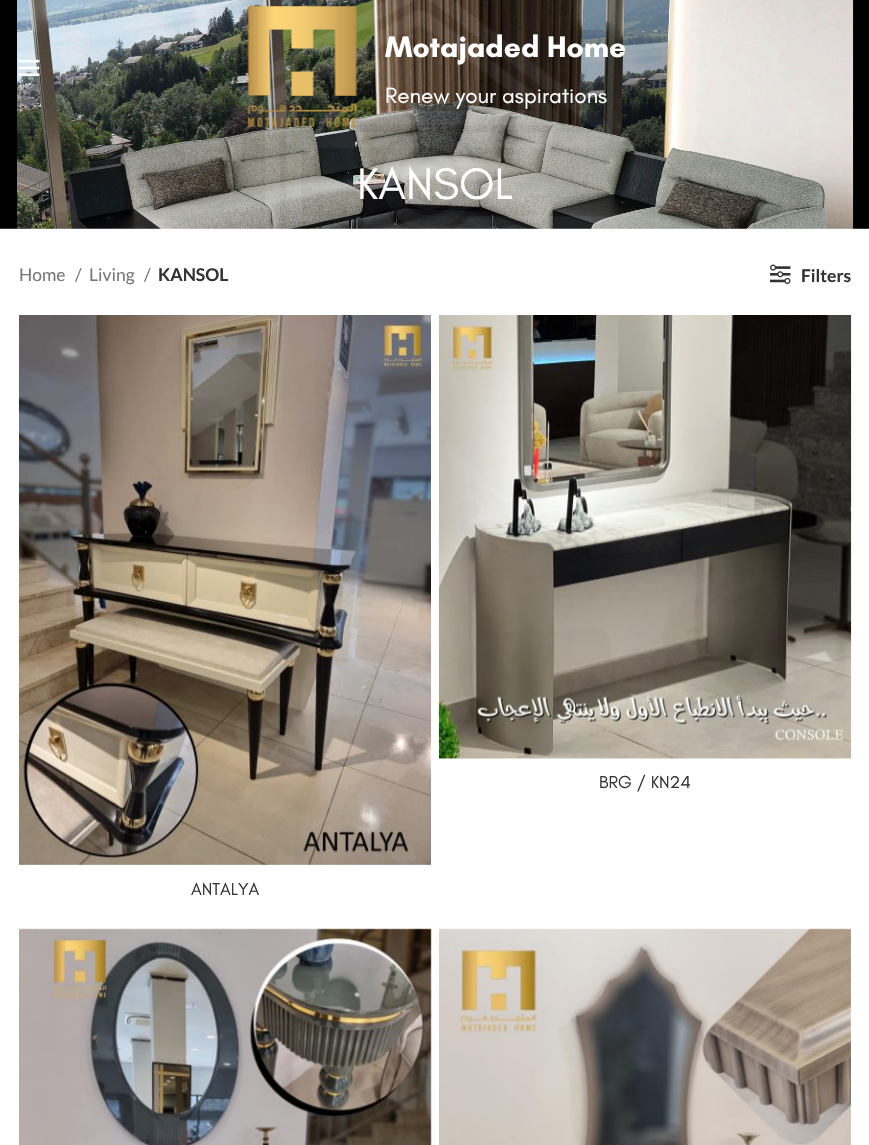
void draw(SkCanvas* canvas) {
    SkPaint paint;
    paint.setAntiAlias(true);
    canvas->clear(0xFFFFFFFF);
    canvas->drawImageRect(SkImages::DeferredFromEncodedData(SkData::MakeFromFileName("img3.png")), SkRect::MakeXYWH(0, 0, 869, 229), SkSamplingOptions());
    canvas->drawImageRect(SkImages::DeferredFromEncodedData(SkData::MakeFromFileName("img1.png")), SkRect::MakeXYWH(18, 59, 22, 17), SkSamplingOptions());
    canvas->drawImageRect(SkImages::DeferredFromEncodedData(SkData::MakeFromFileName("img2.png")), SkRect::MakeXYWH(247, 6, 111, 122), SkSamplingOptions());
    SkFont font1(fontMgr->matchFamilyStyle("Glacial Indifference", SkFontStyle::Bold()), 30);
    font1.setSubpixel(true);
    paint.setColor(0xFFFFFFFF);
    canvas->drawString("Motajaded Home", 385, 57, font1, paint);
    SkFont font2(fontMgr->matchFamilyStyle("Glacial Indifference", SkFontStyle::Normal()), 22.5f);
    font2.setSubpixel(true);
    canvas->drawString("Renew your aspirations", 385, 103, font2, paint);
    SkFont font3(fontMgr->matchFamilyStyle("Glacial Indifference", SkFontStyle::Normal()), 45);
    font3.setSubpixel(true);
    canvas->drawString("KANSOL", 357, 199, font3, paint);
    SkFont font4(fontMgr->matchFamilyStyle("Lato", SkFontStyle::Normal()), 17.5f);
    font4.setSubpixel(true);
    paint.setColor(0xFF777777);
    canvas->drawString("Home", 19, 281, font4, paint);
    canvas->drawString("/", 75, 281, font4, paint);
    canvas->drawString("Living", 89, 281, font4, paint);
    canvas->drawString("/", 144, 281, font4, paint);
    SkFont font5(fontMgr->matchFamilyStyle("Lato", SkFontStyle::Bold()), 17.5f);
    font5.setSubpixel(true);
    paint.setColor(0xFF333333);
    canvas->drawString("KANSOL", 158, 281, font5, paint);
    canvas->drawImageRect(SkImages::DeferredFromEncodedData(SkData::MakeFromFileName("img4.png")), SkRect::MakeXYWH(770, 264, 21, 20), SkSamplingOptions());
    canvas->drawString("Filters", 801, 282, font5, paint);
    canvas->drawImageRect(SkImages::DeferredFromEncodedData(SkData::MakeFromFileName("img5.png")), SkRect::MakeXYWH(438, 315, 414, 444), SkSamplingOptions());
    SkFont font6(fontMgr->matchFamilyStyle("Glacial Indifference", SkFontStyle::Normal()), 17.5f);
    font6.setSubpixel(true);
    canvas->drawString("BRG / KN24", 599, 788, font6, paint);
    canvas->drawImageRect(SkImages::DeferredFromEncodedData(SkData::MakeFromFileName("img6.png")), SkRect::MakeXYWH(19, 315, 412, 550), SkSamplingOptions());
    canvas->drawString("ANTALYA", 191, 895, font6, paint);
    canvas->drawImageRect(SkImages::DeferredFromEncodedData(SkData::MakeFromFileName("img7.png")), SkRect::MakeXYWH(19, 928, 413, 217), SkSamplingOptions());
    canvas->drawImageRect(SkImages::DeferredFromEncodedData(SkData::MakeFromFileName("img8.png")), SkRect::MakeXYWH(439, 928, 412, 217), SkSamplingOptions());
}
